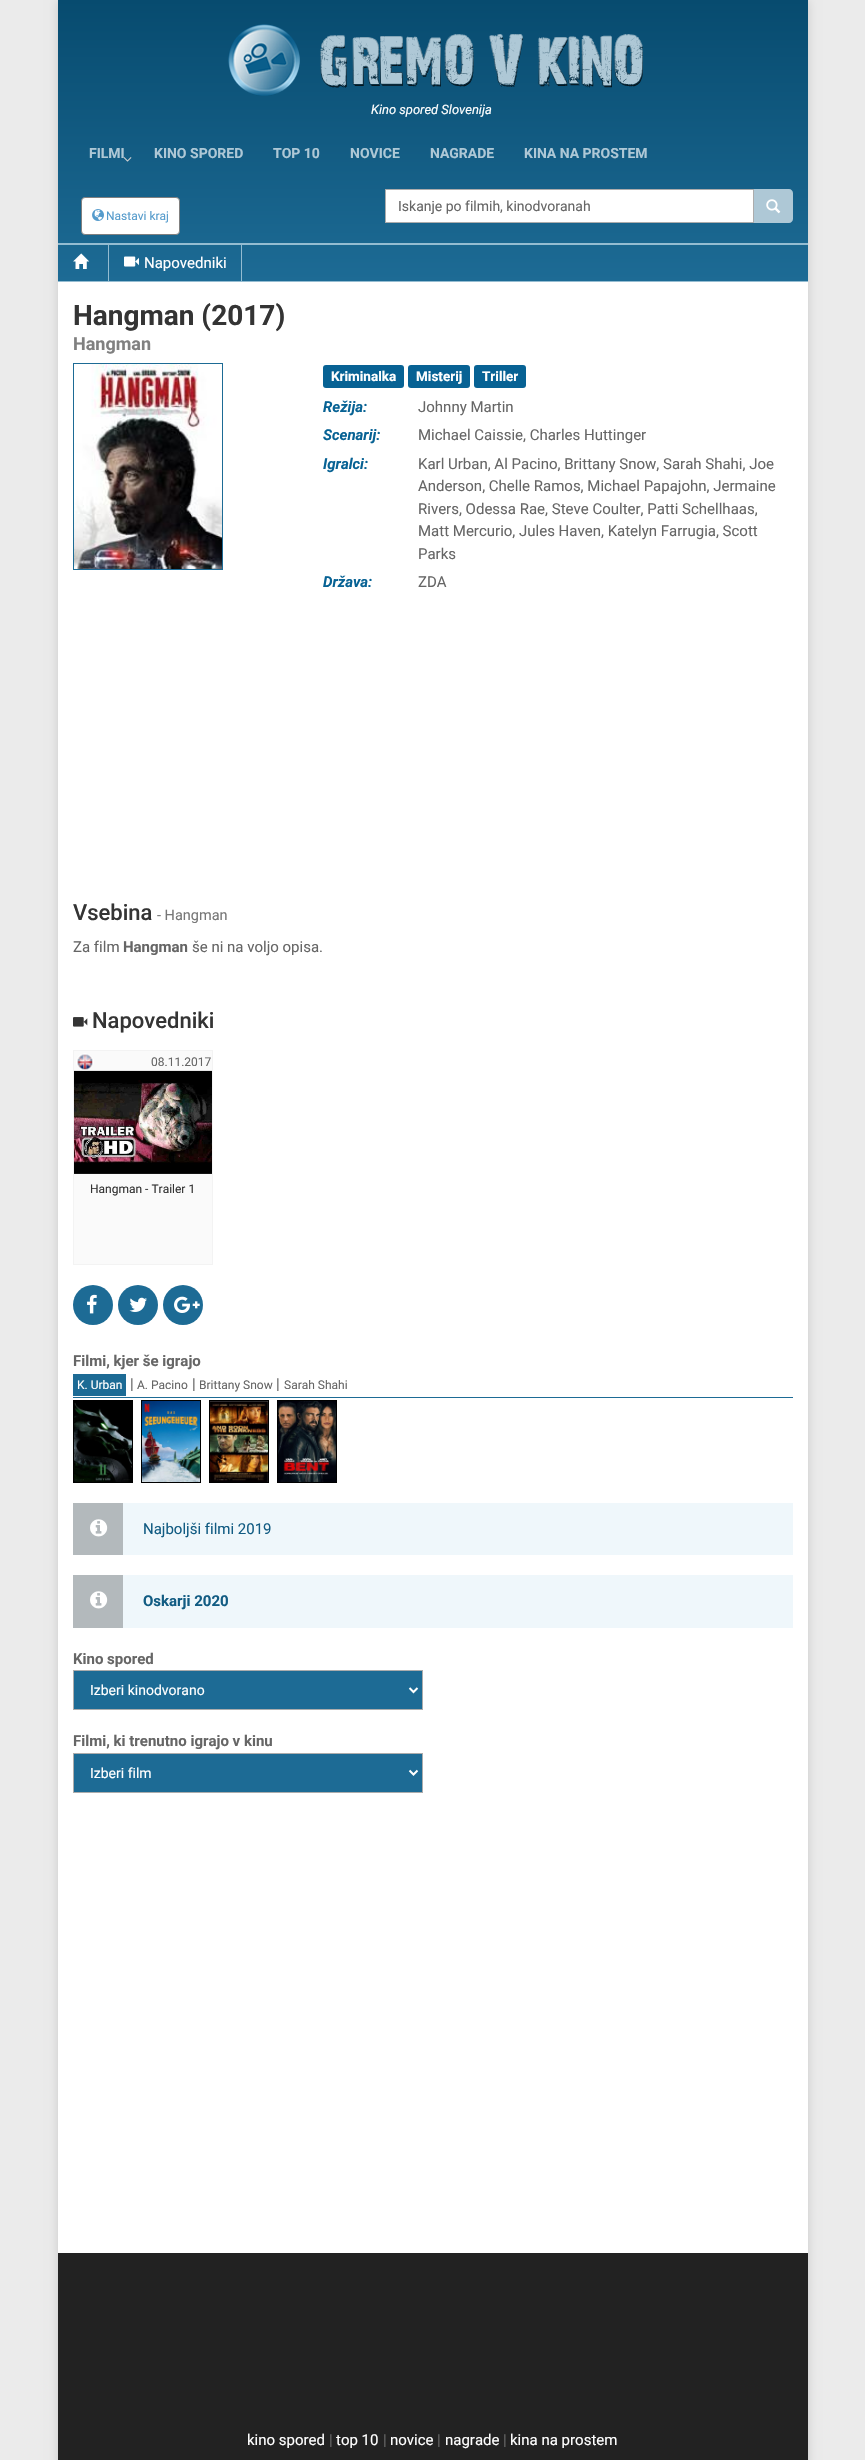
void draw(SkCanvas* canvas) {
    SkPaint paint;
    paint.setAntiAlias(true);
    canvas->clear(0xFFEBEBEB);
    paint.setColor(0xFFCACACA);
    paint.setMaskFilter(SkMaskFilter::MakeBlur(kNormal_SkBlurStyle, 5));
    canvas->drawRect(SkRect::MakeXYWH(58, 0, 750, 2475), paint);
    paint.setMaskFilter(nullptr);
    paint.setColor(0xFFFFFFFF);
    canvas->drawRect(SkRect::MakeXYWH(58, 282, 750, 1971), paint);
    {
        const SkColor colors[] = {0xFF074B6F, 0xFF1D6B95};
        const float stops[] = {0, 1};
        const SkPoint ends[] = {{433, 0}, {433, 281}};
        paint.setShader(SkGradientShader::MakeLinear(ends, colors, stops, 2, SkTileMode::kClamp));
        paint.setAlpha(255);
    }
    canvas->drawRect(SkRect::MakeXYWH(58, 0, 750, 281), paint);
    paint.setShader(nullptr);
    paint.setColor(0xFF94BCD1);
    canvas->drawRect(SkRect::MakeXYWH(58, 281, 750, 1), paint);
    canvas->drawImageRect(SkImages::DeferredFromEncodedData(SkData::MakeFromFileName("img1.png")), SkRect::MakeXYWH(228, 24, 415, 72), SkSamplingOptions());
    SkFont font1(fontMgr->matchFamilyStyle("Roboto", SkFontStyle::Italic()), 13);
    font1.setSubpixel(true);
    paint.setColor(0xFFFFFFFF);
    canvas->drawString("Kino spored Slovenija", 371, 114, font1, paint);
    SkFont font2(fontMgr->matchFamilyStyle("Roboto", SkFontStyle::Bold()), 14);
    font2.setSubpixel(true);
    paint.setColor(0xFFAEC8D6);
    canvas->drawString("FILMI", 89, 158, font2, paint);
    canvas->drawImageRect(SkImages::DeferredFromEncodedData(SkData::MakeFromFileName("img2.png")), SkRect::MakeXYWH(123, 157, 9, 5), SkSamplingOptions());
    canvas->drawString("KINO SPORED", 154, 158, font2, paint);
    canvas->drawString("TOP 10", 273, 158, font2, paint);
    canvas->drawString("NOVICE", 350, 158, font2, paint);
    canvas->drawString("NAGRADE", 430, 158, font2, paint);
    canvas->drawString("KINA NA PROSTEM", 524, 158, font2, paint);
    paint.setColor(0xFFFFFFFF);
    canvas->drawRect(SkRect::MakeXYWH(385.5f, 189.5f, 368, 33), paint);
    paint.setStyle(SkPaint::kStroke_Style);
    paint.setStrokeWidth(1);
    paint.setColor(0xFFACACAC);
    canvas->drawRect(SkRect::MakeXYWH(385.5f, 189.5f, 368, 33), paint);
    SkFont font3(fontMgr->matchFamilyStyle("Roboto", SkFontStyle::Normal()), 14);
    font3.setSubpixel(true);
    paint.setStyle(SkPaint::kFill_Style);
    paint.setColor(0xFF666666);
    canvas->drawString("Iskanje po filmih, kinodvoranah", 398, 211, font3, paint);
    paint.setColor(0xFFAEC8D6);
    canvas->drawPath(SkPathBuilder().moveTo(754, 189).lineTo(789, 189).cubicTo(791, 189, 793, 191, 793, 193).lineTo(793, 219).cubicTo(793, 221, 791, 223, 789, 223).lineTo(754, 223).close().detach(), paint);
    canvas->drawImageRect(SkImages::DeferredFromEncodedData(SkData::MakeFromFileName("img3.png")), SkRect::MakeXYWH(766, 199, 15, 15), SkSamplingOptions());
    paint.setColor(0xFFFFFFFF);
    canvas->drawRoundRect(SkRect::MakeXYWH(81.5f, 197.5f, 98, 37), 3.5f, 3.5f, paint);
    paint.setStyle(SkPaint::kStroke_Style);
    paint.setColor(0xFF808080);
    canvas->drawRoundRect(SkRect::MakeXYWH(81.5f, 197.5f, 98, 37), 3.5f, 3.5f, paint);
    canvas->drawImageRect(SkImages::DeferredFromEncodedData(SkData::MakeFromFileName("img4.png")), SkRect::MakeXYWH(92, 209, 12, 12), SkSamplingOptions());
    SkFont font4(fontMgr->matchFamilyStyle("Roboto", SkFontStyle::Normal()), 12);
    font4.setSubpixel(true);
    paint.setStyle(SkPaint::kFill_Style);
    paint.setColor(0xFF559BCC);
    canvas->drawString("Nastavi kraj", 106, 220, font4, paint);
    paint.setColor(0xFF94BCD1);
    canvas->drawRect(SkRect::MakeXYWH(58, 243, 750, 2), paint);
    canvas->drawRect(SkRect::MakeXYWH(108, 245, 1, 36), paint);
    canvas->drawImageRect(SkImages::DeferredFromEncodedData(SkData::MakeFromFileName("img5.png")), SkRect::MakeXYWH(73, 253, 17, 16), SkSamplingOptions());
    canvas->drawRect(SkRect::MakeXYWH(241, 245, 1, 36), paint);
    canvas->drawImageRect(SkImages::DeferredFromEncodedData(SkData::MakeFromFileName("img6.png")), SkRect::MakeXYWH(124, 256, 15, 11), SkSamplingOptions());
    SkFont font5(fontMgr->matchFamilyStyle("Roboto", SkFontStyle::Normal()), 15);
    font5.setSubpixel(true);
    paint.setColor(0xFFFFFFFF);
    canvas->drawString("Napovedniki", 144, 268, font5, paint);
    SkFont font6(fontMgr->matchFamilyStyle("Roboto", SkFontStyle::Bold()), 28);
    font6.setSubpixel(true);
    paint.setColor(0xFF343434);
    canvas->drawString("Hangman (2017)", 73, 325, font6, paint);
    SkFont font7(fontMgr->matchFamilyStyle("Roboto", SkFontStyle::Bold()), 18);
    font7.setSubpixel(true);
    paint.setColor(0xFF808080);
    canvas->drawString("Hangman", 73, 350, font7, paint);
    paint.setStyle(SkPaint::kStroke_Style);
    paint.setColor(0xFF1D6B95);
    canvas->drawRect(SkRect::MakeXYWH(73.5f, 363.5f, 149, 206), paint);
    canvas->drawImageRect(SkImages::DeferredFromEncodedData(SkData::MakeFromFileName("img7.png")), SkRect::MakeXYWH(74, 364, 148, 205), SkSamplingOptions());
    paint.setStyle(SkPaint::kFill_Style);
    paint.setColor(0xFF076294);
    canvas->drawRoundRect(SkRect::MakeXYWH(323, 365, 81, 23), 3, 3, paint);
    SkFont font8(fontMgr->matchFamilyStyle("Roboto", SkFontStyle::Bold()), 13.5f);
    font8.setSubpixel(true);
    paint.setColor(0xFFFFFFFF);
    canvas->drawString("Kriminalka", 331, 381, font8, paint);
    paint.setColor(0xFF076294);
    canvas->drawRoundRect(SkRect::MakeXYWH(408, 365, 62, 23), 3, 3, paint);
    paint.setColor(0xFFFFFFFF);
    canvas->drawString("Misterij", 416, 381, font8, paint);
    paint.setColor(0xFF076294);
    canvas->drawRoundRect(SkRect::MakeXYWH(474, 365, 52, 23), 3, 3, paint);
    paint.setColor(0xFFFFFFFF);
    canvas->drawString("Triller", 482, 381, font8, paint);
    SkFont font9(fontMgr->matchFamilyStyle("Roboto", SkFontStyle::BoldItalic()), 15);
    font9.setSubpixel(true);
    paint.setColor(0xFF076294);
    canvas->drawString("Režija:", 323, 412, font9, paint);
    paint.setColor(0xFF666666);
    canvas->drawString("Johnny Martin", 418, 412, font5, paint);
    paint.setColor(0xFF076294);
    canvas->drawString("Scenarij:", 323, 440, font9, paint);
    paint.setColor(0xFF666666);
    canvas->drawString("Michael Caissie, Charles Huttinger", 418, 440, font5, paint);
    paint.setColor(0xFF076294);
    canvas->drawString("Igralci:", 323, 469, font9, paint);
    paint.setColor(0xFF666666);
    canvas->drawString("Karl Urban, Al Pacino, Brittany Snow, Sarah Shahi, Joe", 418, 469, font5, paint);
    canvas->drawString("Anderson, Chelle Ramos, Michael Papajohn, Jermaine", 418, 491, font5, paint);
    canvas->drawString("Rivers, Odessa Rae, Steve Coulter, Patti Schellhaas,", 418, 514, font5, paint);
    canvas->drawString("Matt Mercurio, Jules Haven, Katelyn Farrugia, Scott", 418, 536, font5, paint);
    canvas->drawString("Parks", 418, 559, font5, paint);
    paint.setColor(0xFF076294);
    canvas->drawString("Država:", 323, 587, font9, paint);
    paint.setColor(0xFF666666);
    canvas->drawString("ZDA", 418, 587, font5, paint);
    SkFont font10(fontMgr->matchFamilyStyle("Roboto", SkFontStyle(500, SkFontStyle::kNormal_Width, SkFontStyle::kUpright_Slant)), 22);
    font10.setSubpixel(true);
    paint.setColor(0xFF343434);
    canvas->drawString("Vsebina", 73, 920, font10, paint);
    SkFont font11(fontMgr->matchFamilyStyle("Roboto", SkFontStyle::Normal()), 14.5f);
    font11.setSubpixel(true);
    paint.setColor(0xFF777777);
    canvas->drawString("- Hangman", 157, 920, font11, paint);
    paint.setColor(0xFF666666);
    canvas->drawString("Za film", 73, 952, font5, paint);
    SkFont font12(fontMgr->matchFamilyStyle("Roboto", SkFontStyle::Bold()), 15);
    font12.setSubpixel(true);
    canvas->drawString("Hangman", 123, 952, font12, paint);
    canvas->drawString("še ni na voljo opisa.", 192, 952, font5, paint);
    canvas->drawImageRect(SkImages::DeferredFromEncodedData(SkData::MakeFromFileName("img8.png")), SkRect::MakeXYWH(73, 1017, 15, 10), SkSamplingOptions());
    paint.setColor(0xFF343434);
    canvas->drawString("Napovedniki", 92, 1028, font10, paint);
    paint.setColor(0xFFFAFAFA);
    canvas->drawRect(SkRect::MakeXYWH(73.5f, 1050.5f, 139, 214), paint);
    paint.setStyle(SkPaint::kStroke_Style);
    paint.setColor(0xFFF3F3F3);
    canvas->drawRect(SkRect::MakeXYWH(73.5f, 1050.5f, 139, 214), paint);
    canvas->drawImageRect(SkImages::DeferredFromEncodedData(SkData::MakeFromFileName("img9.png")), SkRect::MakeXYWH(76, 1053, 18, 18), SkSamplingOptions());
    paint.setStyle(SkPaint::kFill_Style);
    paint.setColor(0xFF666666);
    canvas->drawString("08.11.2017", 151, 1066, font4, paint);
    canvas->drawImageRect(SkImages::DeferredFromEncodedData(SkData::MakeFromFileName("img10.png")), SkRect::MakeXYWH(74, 1070, 138, 104), SkSamplingOptions());
    paint.setColor(0xFF343434);
    canvas->drawString("Hangman - Trailer 1", 90, 1193, font4, paint);
    paint.setColor(0xFF1D6B95);
    canvas->drawCircle(93, 1305, 20, paint);
    canvas->drawImageRect(SkImages::DeferredFromEncodedData(SkData::MakeFromFileName("img11.png")), SkRect::MakeXYWH(87, 1294, 10, 20), SkSamplingOptions());
    canvas->drawCircle(138, 1305, 20, paint);
    canvas->drawImageRect(SkImages::DeferredFromEncodedData(SkData::MakeFromFileName("img12.png")), SkRect::MakeXYWH(129, 1297, 18, 15), SkSamplingOptions());
    canvas->drawCircle(183, 1305, 20, paint);
    canvas->drawImageRect(SkImages::DeferredFromEncodedData(SkData::MakeFromFileName("img13.png")), SkRect::MakeXYWH(174, 1296, 26, 17), SkSamplingOptions());
    paint.setColor(0xFF666666);
    canvas->drawString("Filmi, kjer še igrajo", 73, 1366, font12, paint);
    paint.setColor(0xFF1D6B95);
    canvas->drawRect(SkRect::MakeXYWH(73, 1397, 720, 1), paint);
    canvas->drawRect(SkRect::MakeXYWH(73, 1374, 53, 22), paint);
    paint.setColor(0xFFFFFFFF);
    canvas->drawString("K. Urban", 77, 1389, font4, paint);
    paint.setColor(0xFF666666);
    canvas->drawString("|", 130, 1389, font5, paint);
    canvas->drawString("A. Pacino", 137, 1389, font4, paint);
    canvas->drawString("|", 192, 1389, font5, paint);
    canvas->drawString("Brittany Snow", 199, 1389, font4, paint);
    canvas->drawString("|", 276, 1389, font5, paint);
    canvas->drawString("Sarah Shahi", 284, 1389, font4, paint);
    paint.setStyle(SkPaint::kStroke_Style);
    paint.setColor(0xFF000000);
    canvas->drawRect(SkRect::MakeXYWH(73.5f, 1400.5f, 59, 82), paint);
    canvas->drawImageRect(SkImages::DeferredFromEncodedData(SkData::MakeFromFileName("img14.png")), SkRect::MakeXYWH(74, 1401, 58, 81), SkSamplingOptions());
    canvas->drawRect(SkRect::MakeXYWH(141.5f, 1400.5f, 59, 82), paint);
    canvas->drawImageRect(SkImages::DeferredFromEncodedData(SkData::MakeFromFileName("img15.png")), SkRect::MakeXYWH(142, 1401, 58, 81), SkSamplingOptions());
    canvas->drawRect(SkRect::MakeXYWH(209.5f, 1400.5f, 59, 82), paint);
    canvas->drawImageRect(SkImages::DeferredFromEncodedData(SkData::MakeFromFileName("img16.png")), SkRect::MakeXYWH(210, 1401, 58, 81), SkSamplingOptions());
    canvas->drawRect(SkRect::MakeXYWH(277.5f, 1400.5f, 59, 82), paint);
    canvas->drawImageRect(SkImages::DeferredFromEncodedData(SkData::MakeFromFileName("img17.png")), SkRect::MakeXYWH(278, 1401, 58, 81), SkSamplingOptions());
    paint.setStyle(SkPaint::kFill_Style);
    paint.setColor(0xFFEFF7FB);
    canvas->drawRect(SkRect::MakeXYWH(123, 1503, 670, 52), paint);
    paint.setColor(0xFFB3B9BC);
    canvas->drawRect(SkRect::MakeXYWH(73, 1503, 50, 52), paint);
    canvas->drawImageRect(SkImages::DeferredFromEncodedData(SkData::MakeFromFileName("img18.png")), SkRect::MakeXYWH(90, 1519, 18, 18), SkSamplingOptions());
    paint.setColor(0xFF125C83);
    canvas->drawString("Najboljši filmi 2019", 143, 1534, font5, paint);
    paint.setColor(0xFFEFF7FB);
    canvas->drawRect(SkRect::MakeXYWH(123, 1575, 670, 53), paint);
    paint.setColor(0xFFB3B9BC);
    canvas->drawRect(SkRect::MakeXYWH(73, 1575, 50, 53), paint);
    canvas->drawImageRect(SkImages::DeferredFromEncodedData(SkData::MakeFromFileName("img18.png")), SkRect::MakeXYWH(90, 1591, 18, 18), SkSamplingOptions());
    paint.setColor(0xFF125C83);
    canvas->drawString("Oskarji 2020", 143, 1606, font12, paint);
    paint.setColor(0xFF666666);
    canvas->drawString("Kino spored", 73, 1664, font12, paint);
    paint.setColor(0xFF1D6B95);
    canvas->drawRect(SkRect::MakeXYWH(73.5f, 1670.5f, 349, 39), paint);
    paint.setStyle(SkPaint::kStroke_Style);
    paint.setColor(0xFFACACAC);
    canvas->drawRect(SkRect::MakeXYWH(73.5f, 1670.5f, 349, 39), paint);
    paint.setStrokeWidth(2);
    paint.setColor(0xFFFFFFFF);
    canvas->drawPath(SkPathBuilder().moveTo(409.5f, 1688).lineTo(413.5f, 1692).lineTo(417.5f, 1688).detach(), paint);
    paint.setStyle(SkPaint::kFill_Style);
    canvas->drawString("Izberi kinodvorano", 90, 1695, font3, paint);
    paint.setColor(0xFF666666);
    canvas->drawString("Filmi, ki trenutno igrajo v kinu", 73, 1746, font12, paint);
    paint.setColor(0xFF1D6B95);
    canvas->drawRect(SkRect::MakeXYWH(73.5f, 1753.5f, 349, 39), paint);
    paint.setStyle(SkPaint::kStroke_Style);
    paint.setStrokeWidth(1);
    paint.setColor(0xFFACACAC);
    canvas->drawRect(SkRect::MakeXYWH(73.5f, 1753.5f, 349, 39), paint);
    paint.setStrokeWidth(2);
    paint.setColor(0xFFFFFFFF);
    canvas->drawPath(SkPathBuilder().moveTo(409.5f, 1770.5f).lineTo(413.5f, 1774.5f).lineTo(417.5f, 1770.5f).detach(), paint);
    paint.setStyle(SkPaint::kFill_Style);
    canvas->drawString("Izberi film", 90, 1778, font3, paint);
    paint.setColor(0xFF222222);
    canvas->drawRect(SkRect::MakeXYWH(58, 2253, 750, 207), paint);
    paint.setColor(0xFFFFFFFF);
    canvas->drawString("kino spored", 247, 2445, font5, paint);
    paint.setColor(0xFF666666);
    canvas->drawString("|", 329, 2445, font5, paint);
    paint.setColor(0xFFFFFFFF);
    canvas->drawString("top 10", 336, 2445, font5, paint);
    paint.setColor(0xFF666666);
    canvas->drawString("|", 383, 2445, font5, paint);
    paint.setColor(0xFFFFFFFF);
    canvas->drawString("novice", 390, 2445, font5, paint);
    paint.setColor(0xFF666666);
    canvas->drawString("|", 437, 2445, font5, paint);
    paint.setColor(0xFFFFFFFF);
    canvas->drawString("nagrade", 445, 2445, font5, paint);
    paint.setColor(0xFF666666);
    canvas->drawString("|", 503, 2445, font5, paint);
    paint.setColor(0xFFFFFFFF);
    canvas->drawString("kina na prostem", 510, 2445, font5, paint);
}
